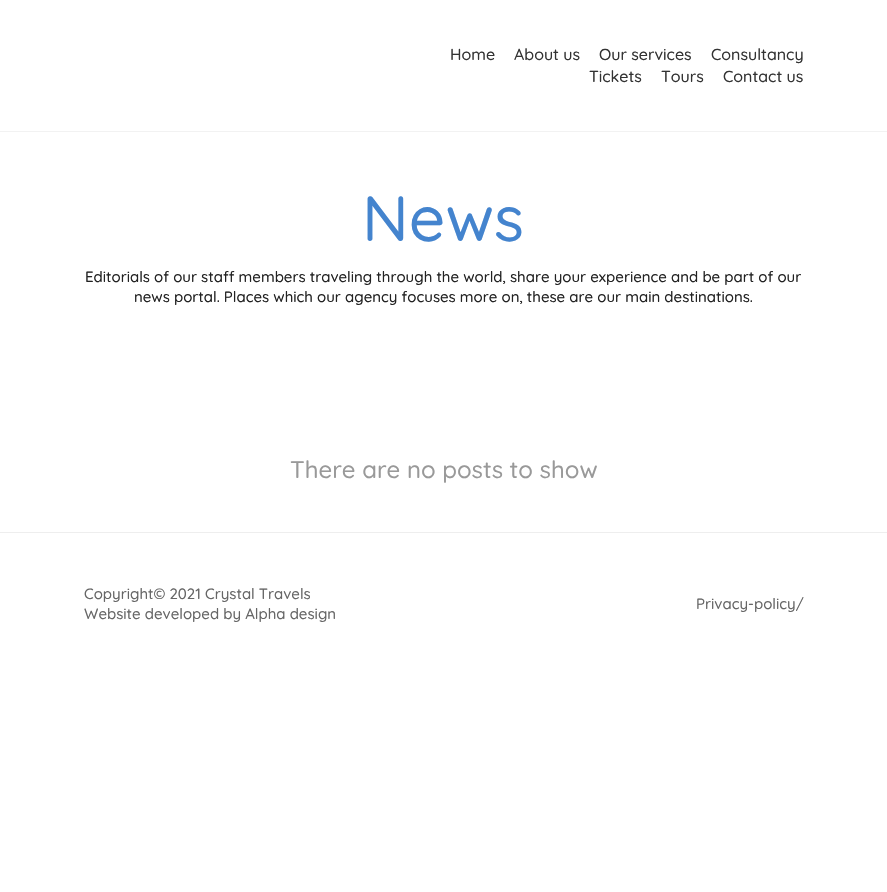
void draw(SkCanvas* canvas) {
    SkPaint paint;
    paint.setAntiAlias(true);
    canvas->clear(0xFFFFFFFF);
    paint.setColor(0xFFF2F2F2);
    canvas->drawRect(SkRect::MakeXYWH(0, 131, 887, 1), paint);
    SkFont font1(fontMgr->matchFamilyStyle("Quicksand", SkFontStyle(500, SkFontStyle::kNormal_Width, SkFontStyle::kUpright_Slant)), 16);
    font1.setSubpixel(true);
    paint.setColor(0xFF333333);
    canvas->drawString("Home", 450, 60, font1, paint);
    canvas->drawString("About us", 514, 60, font1, paint);
    canvas->drawString("Our services", 599, 60, font1, paint);
    canvas->drawString("Consultancy", 711, 60, font1, paint);
    canvas->drawString("Tickets", 589, 82, font1, paint);
    canvas->drawString("Tours", 661, 82, font1, paint);
    canvas->drawString("Contact us", 723, 82, font1, paint);
    SkFont font2(fontMgr->matchFamilyStyle("Quicksand", SkFontStyle(500, SkFontStyle::kNormal_Width, SkFontStyle::kUpright_Slant)), 64);
    font2.setSubpixel(true);
    paint.setColor(0xFF4484CE);
    canvas->drawString("News", 362, 241, font2, paint);
    SkFont font3(fontMgr->matchFamilyStyle("Quicksand", SkFontStyle(500, SkFontStyle::kNormal_Width, SkFontStyle::kUpright_Slant)), 15);
    font3.setSubpixel(true);
    paint.setColor(0xFF222222);
    canvas->drawString("Editorials of our staff members traveling through the world, share your experience and be part of our", 85, 282, font3, paint);
    canvas->drawString("news portal. Places which our agency focuses more on, these are our main destinations.", 134, 302, font3, paint);
    SkFont font4(fontMgr->matchFamilyStyle("Quicksand", SkFontStyle(500, SkFontStyle::kNormal_Width, SkFontStyle::kUpright_Slant)), 24);
    font4.setSubpixel(true);
    paint.setColor(0xFF999999);
    canvas->drawString("There are no posts to show", 290, 478, font4, paint);
    paint.setColor(0xFFEEEEEE);
    canvas->drawRect(SkRect::MakeXYWH(0, 532, 887, 1), paint);
    paint.setColor(0xFF666666);
    canvas->drawString("Copyright© 2021 Crystal Travels", 84, 599, font3, paint);
    canvas->drawString("Website developed by Alpha design", 84, 619, font3, paint);
    canvas->drawString("Privacy-policy/", 696, 609, font3, paint);
}
